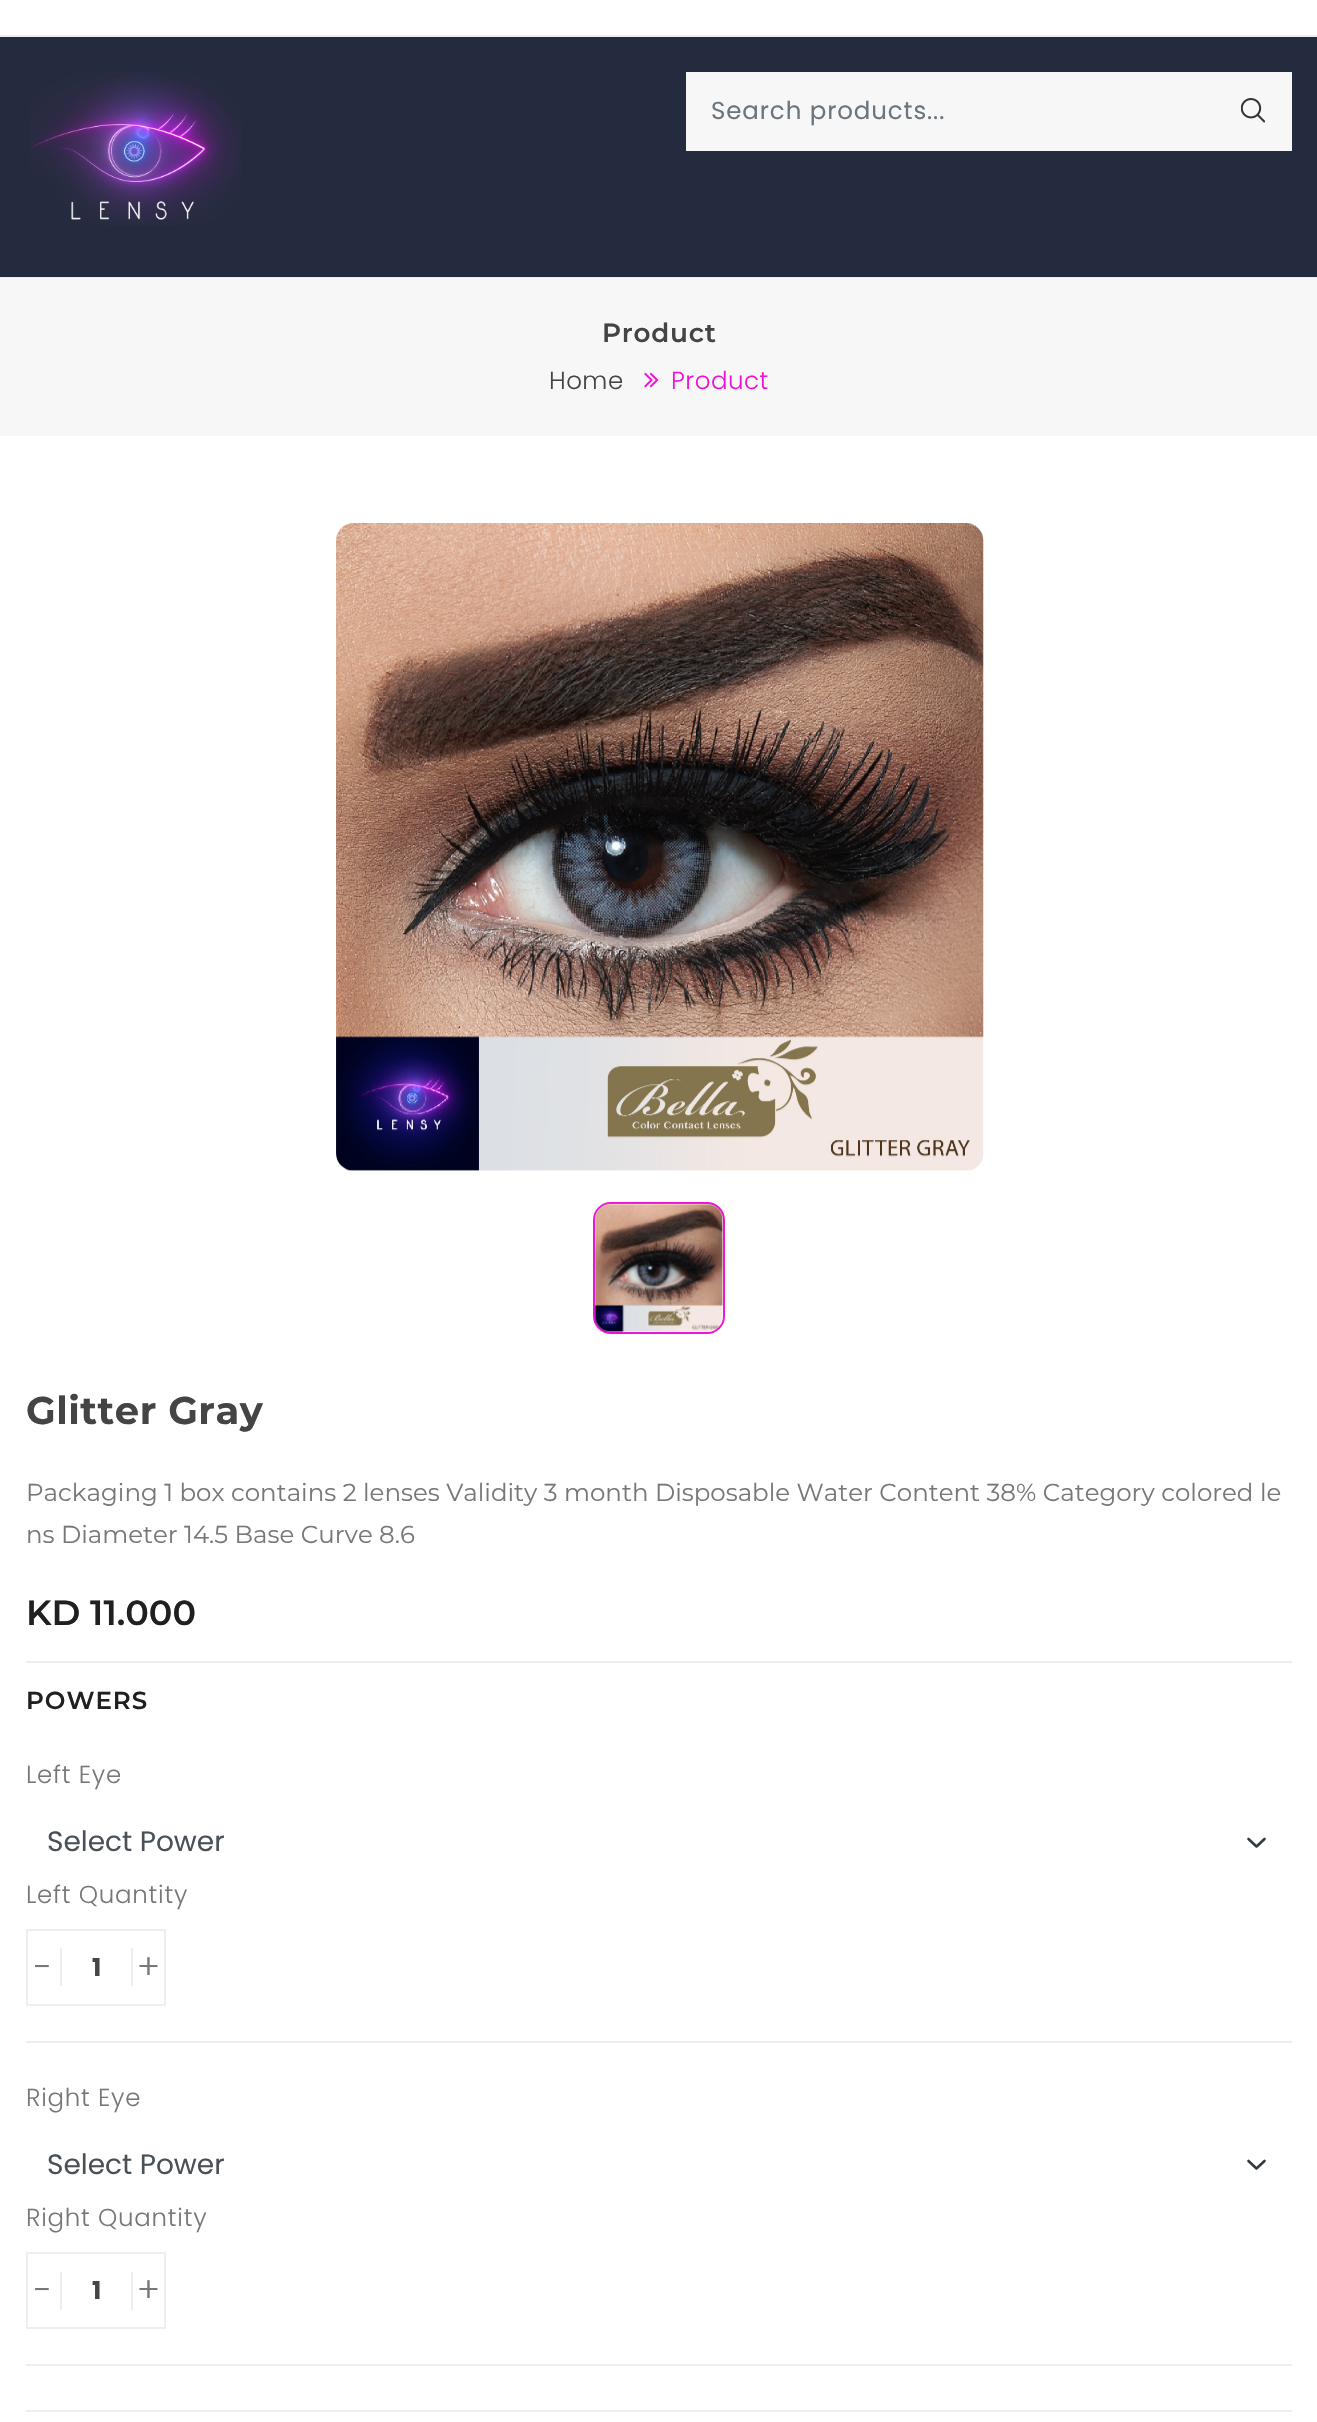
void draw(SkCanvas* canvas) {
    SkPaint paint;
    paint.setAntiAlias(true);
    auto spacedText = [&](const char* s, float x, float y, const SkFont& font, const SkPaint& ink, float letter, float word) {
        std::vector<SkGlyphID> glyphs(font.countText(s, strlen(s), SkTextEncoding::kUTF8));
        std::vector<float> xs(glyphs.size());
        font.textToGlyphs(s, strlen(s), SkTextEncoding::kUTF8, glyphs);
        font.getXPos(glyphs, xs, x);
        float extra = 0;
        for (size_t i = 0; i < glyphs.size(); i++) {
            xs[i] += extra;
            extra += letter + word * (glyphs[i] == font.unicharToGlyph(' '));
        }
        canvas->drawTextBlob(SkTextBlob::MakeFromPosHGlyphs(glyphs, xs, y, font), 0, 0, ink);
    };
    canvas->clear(0xFFFFFFFF);
    paint.setColor(0xFFEEEEEE);
    canvas->drawRect(SkRect::MakeXYWH(0, 35, 1317, 2), paint);
    paint.setColor(0xFF252B3E);
    canvas->drawRect(SkRect::MakeXYWH(0, 37, 1317, 240), paint);
    paint.setColor(0xFFEEEEEE);
    canvas->drawRect(SkRect::MakeXYWH(0, 277, 1317, 1), paint);
    canvas->drawImageRect(SkImages::DeferredFromEncodedData(SkData::MakeFromFileName("img1.png")), SkRect::MakeXYWH(29, 72, 213, 154), SkSamplingOptions());
    paint.setColor(0xFFF7F7F7);
    canvas->drawRect(SkRect::MakeXYWH(686, 72, 606, 79), paint);
    SkFont font1(fontMgr->matchFamilyStyle("Poppins", SkFontStyle::Normal()), 24.5f);
    font1.setSubpixel(true);
    paint.setColor(0xFF6C757D);
    spacedText("Search products...", 711, 119, font1, paint, 0.9f, 0);
    canvas->drawImageRect(SkImages::DeferredFromEncodedData(SkData::MakeFromFileName("img2.png")), SkRect::MakeXYWH(1241, 98, 24, 25), SkSamplingOptions());
    paint.setColor(0xFFF7F7F7);
    canvas->drawRect(SkRect::MakeXYWH(0, 278, 1317, 158), paint);
    SkFont font2(fontMgr->matchFamilyStyle("Montserrat", SkFontStyle(600, SkFontStyle::kNormal_Width, SkFontStyle::kUpright_Slant)), 26.25f);
    font2.setSubpixel(true);
    paint.setColor(0xFF444444);
    spacedText("Product", 602, 342, font2, paint, 0.75f, 0);
    SkFont font3(fontMgr->matchFamilyStyle("Poppins", SkFontStyle(300, SkFontStyle::kNormal_Width, SkFontStyle::kUpright_Slant)), 24.5f);
    font3.setSubpixel(true);
    spacedText("Home", 549, 389, font3, paint, 0.5f, 0);
    canvas->drawImageRect(SkImages::DeferredFromEncodedData(SkData::MakeFromFileName("img3.png")), SkRect::MakeXYWH(644, 372, 15, 16), SkSamplingOptions());
    paint.setColor(0xFFF010D8);
    spacedText("Product", 671, 389, font3, paint, 0.5f, 0);
    canvas->drawImageRect(SkImages::DeferredFromEncodedData(SkData::MakeFromFileName("img4.png")), SkRect::MakeXYWH(336, 523, 648, 648), SkSamplingOptions());
    paint.setStyle(SkPaint::kStroke_Style);
    paint.setStrokeWidth(2);
    canvas->drawRoundRect(SkRect::MakeXYWH(594, 1203, 130, 130), 17, 17, paint);
    canvas->drawImageRect(SkImages::DeferredFromEncodedData(SkData::MakeFromFileName("img5.png")), SkRect::MakeXYWH(594, 1203, 130, 130), SkSamplingOptions());
    SkFont font4(fontMgr->matchFamilyStyle("Montserrat", SkFontStyle::Bold()), 38.5f);
    font4.setSubpixel(true);
    paint.setStyle(SkPaint::kFill_Style);
    paint.setColor(0xFF444444);
    spacedText("Glitter Gray", 26, 1424, font4, paint, 0.5f, 0);
    SkFont font5(fontMgr->matchFamilyStyle("Montserrat", SkFontStyle::Normal()), 24.5f);
    font5.setSubpixel(true);
    paint.setColor(0xFF777777);
    canvas->drawString("Packaging 1 box contains 2 lenses Validity 3 month Disposable Water Content 38% Category colored le", 26, 1501, font5, paint);
    canvas->drawString("ns Diameter 14.5 Base Curve 8.6", 26, 1543, font5, paint);
    paint.setColor(0xFFEEEEEE);
    canvas->drawRect(SkRect::MakeXYWH(26, 1661, 1266, 2), paint);
    SkFont font6(fontMgr->matchFamilyStyle("Montserrat", SkFontStyle(600, SkFontStyle::kNormal_Width, SkFontStyle::kUpright_Slant)), 35);
    font6.setSubpixel(true);
    paint.setColor(0xFF202020);
    canvas->drawString("KD 11.000", 26, 1625, font6, paint);
    paint.setColor(0xFFEEEEEE);
    canvas->drawRect(SkRect::MakeXYWH(26, 2410, 1266, 2), paint);
    SkFont font7(fontMgr->matchFamilyStyle("Montserrat", SkFontStyle(600, SkFontStyle::kNormal_Width, SkFontStyle::kUpright_Slant)), 24.5f);
    font7.setSubpixel(true);
    paint.setColor(0xFF202020);
    spacedText("POWERS", 26, 1709, font7, paint, 1, 0);
    paint.setColor(0xFF777777);
    spacedText("Left Eye", 26, 1783, font3, paint, 0.75f, 0);
    paint.setStyle(SkPaint::kStroke_Style);
    paint.setStrokeWidth(2.6f);
    paint.setStrokeCap(SkPaint::kRound_Cap);
    paint.setStrokeJoin(SkPaint::kRound_Join);
    paint.setColor(0xFF343A40);
    canvas->drawPath(SkPathBuilder().moveTo(1248.5f, 1839).lineTo(1256.5f, 1846.5f).lineTo(1264.5f, 1839).detach(), paint);
    SkFont font8(fontMgr->matchFamilyStyle("Poppins", SkFontStyle::Normal()), 28);
    font8.setSubpixel(true);
    paint.setStyle(SkPaint::kFill_Style);
    paint.setColor(0xFF495057);
    canvas->drawString("Select Power", 47, 1851, font8, paint);
    paint.setColor(0xFF777777);
    spacedText("Left Quantity", 26, 1903, font3, paint, 0.75f, 0);
    paint.setColor(0xFFEEEEEE);
    canvas->drawRect(SkRect::MakeXYWH(26, 2041, 1266, 2), paint);
    paint.setStyle(SkPaint::kStroke_Style);
    paint.setStrokeWidth(2);
    paint.setStrokeCap(SkPaint::kButt_Cap);
    paint.setStrokeJoin(SkPaint::kMiter_Join);
    canvas->drawRect(SkRect::MakeXYWH(27, 1930, 138, 75), paint);
    paint.setStyle(SkPaint::kFill_Style);
    canvas->drawRect(SkRect::MakeXYWH(60, 1948, 2, 38), paint);
    SkFont font9(fontMgr->matchFamilyStyle("Poppins", SkFontStyle(300, SkFontStyle::kNormal_Width, SkFontStyle::kUpright_Slant)), 35);
    font9.setSubpixel(true);
    paint.setColor(0xFF777777);
    spacedText("-", 34, 1979, font9, paint, 0.75f, 0);
    SkFont font10(fontMgr->matchFamilyStyle("Poppins", SkFontStyle::Bold()), 24.5f);
    font10.setSubpixel(true);
    paint.setColor(0xFF444444);
    canvas->drawString("1", 92, 1976, font10, paint);
    paint.setColor(0xFFEEEEEE);
    canvas->drawRect(SkRect::MakeXYWH(131, 1948, 2, 38), paint);
    paint.setColor(0xFF777777);
    spacedText("+", 137, 1979, font9, paint, 0.75f, 0);
    spacedText("Right Eye", 26, 2106, font3, paint, 0.75f, 0);
    paint.setStyle(SkPaint::kStroke_Style);
    paint.setStrokeWidth(2.6f);
    paint.setStrokeCap(SkPaint::kRound_Cap);
    paint.setStrokeJoin(SkPaint::kRound_Join);
    paint.setColor(0xFF343A40);
    canvas->drawPath(SkPathBuilder().moveTo(1248.5f, 2161).lineTo(1256.5f, 2168.5f).lineTo(1264.5f, 2161).detach(), paint);
    paint.setStyle(SkPaint::kFill_Style);
    paint.setColor(0xFF495057);
    canvas->drawString("Select Power", 47, 2174, font8, paint);
    paint.setColor(0xFF777777);
    spacedText("Right Quantity", 26, 2226, font3, paint, 0.75f, 0);
    paint.setColor(0xFFEEEEEE);
    canvas->drawRect(SkRect::MakeXYWH(26, 2364, 1266, 2), paint);
    paint.setStyle(SkPaint::kStroke_Style);
    paint.setStrokeWidth(2);
    paint.setStrokeCap(SkPaint::kButt_Cap);
    paint.setStrokeJoin(SkPaint::kMiter_Join);
    canvas->drawRect(SkRect::MakeXYWH(27, 2253, 138, 75), paint);
    paint.setStyle(SkPaint::kFill_Style);
    canvas->drawRect(SkRect::MakeXYWH(60, 2272, 2, 38), paint);
    paint.setColor(0xFF777777);
    spacedText("-", 34, 2302, font9, paint, 0.75f, 0);
    paint.setColor(0xFF444444);
    canvas->drawString("1", 92, 2299, font10, paint);
    paint.setColor(0xFFEEEEEE);
    canvas->drawRect(SkRect::MakeXYWH(131, 2272, 2, 38), paint);
    paint.setColor(0xFF777777);
    spacedText("+", 137, 2302, font9, paint, 0.75f, 0);
}
